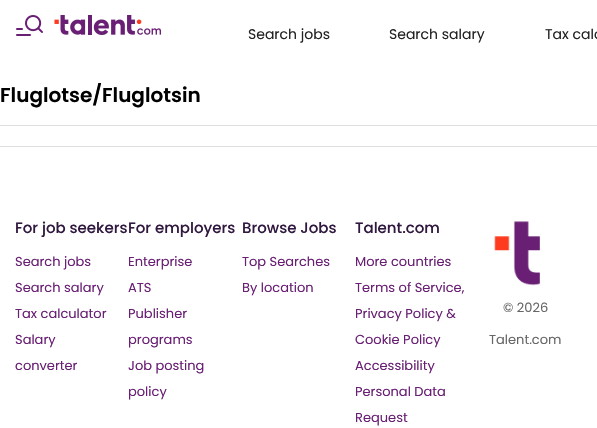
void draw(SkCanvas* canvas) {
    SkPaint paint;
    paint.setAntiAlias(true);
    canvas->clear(0xFFFFFFFF);
    canvas->drawImageRect(SkImages::DeferredFromEncodedData(SkData::MakeFromFileName("img1.png")), SkRect::MakeXYWH(16, 15, 27, 21), SkSamplingOptions());
    canvas->drawImageRect(SkImages::DeferredFromEncodedData(SkData::MakeFromFileName("img2.png")), SkRect::MakeXYWH(54, 15, 107, 20), SkSamplingOptions());
    SkFont font1(fontMgr->matchFamilyStyle("Poppins", SkFontStyle::Normal()), 14);
    font1.setSubpixel(true);
    paint.setColor(0xFF222222);
    canvas->drawString("Search jobs", 248, 39, font1, paint);
    canvas->drawString("Search salary", 389, 39, font1, paint);
    canvas->drawString("Tax calc", 545, 39, font1, paint);
    SkFont font2(fontMgr->matchFamilyStyle("Poppins", SkFontStyle(600, SkFontStyle::kNormal_Width, SkFontStyle::kUpright_Slant)), 20);
    font2.setSubpixel(true);
    paint.setColor(0xFF000000);
    canvas->drawString("Fluglotse/Fluglotsin", 0, 102, font2, paint);
    paint.setColor(0xFFE1DCE2);
    canvas->drawRect(SkRect::MakeXYWH(0, 125, 597, 1), paint);
    canvas->drawRect(SkRect::MakeXYWH(0, 146, 597, 1), paint);
    SkFont font3(fontMgr->matchFamilyStyle("Poppins", SkFontStyle(500, SkFontStyle::kNormal_Width, SkFontStyle::kUpright_Slant)), 15);
    font3.setSubpixel(true);
    paint.setColor(0xFF30183F);
    canvas->drawString("For job seekers", 15, 233, font3, paint);
    SkFont font4(fontMgr->matchFamilyStyle("Poppins", SkFontStyle::Normal()), 13);
    font4.setSubpixel(true);
    paint.setColor(0xFF691F74);
    canvas->drawString("Search jobs", 15, 266, font4, paint);
    canvas->drawString("Search salary", 15, 292, font4, paint);
    canvas->drawString("Tax calculator", 15, 318, font4, paint);
    canvas->drawString("Salary", 15, 344, font4, paint);
    canvas->drawString("converter", 15, 370, font4, paint);
    paint.setColor(0xFF30183F);
    canvas->drawString("For employers", 128, 233, font3, paint);
    paint.setColor(0xFF691F74);
    canvas->drawString("Enterprise", 128, 266, font4, paint);
    canvas->drawString("ATS", 128, 292, font4, paint);
    canvas->drawString("Publisher", 128, 318, font4, paint);
    canvas->drawString("programs", 128, 344, font4, paint);
    canvas->drawString("Job posting", 128, 370, font4, paint);
    canvas->drawString("policy", 128, 396, font4, paint);
    paint.setColor(0xFF30183F);
    canvas->drawString("Browse Jobs", 242, 233, font3, paint);
    paint.setColor(0xFF691F74);
    canvas->drawString("Top Searches", 242, 266, font4, paint);
    canvas->drawString("By location", 242, 292, font4, paint);
    paint.setColor(0xFF30183F);
    canvas->drawString("Talent.com", 355, 233, font3, paint);
    paint.setColor(0xFF691F74);
    canvas->drawString("More countries", 355, 266, font4, paint);
    canvas->drawString("Terms of Service,", 355, 292, font4, paint);
    canvas->drawString("Privacy Policy &", 355, 318, font4, paint);
    canvas->drawString("Cookie Policy", 355, 344, font4, paint);
    canvas->drawString("Accessibility", 355, 370, font4, paint);
    canvas->drawString("Personal Data", 355, 396, font4, paint);
    canvas->drawString("Request", 355, 422, font4, paint);
    canvas->drawImageRect(SkImages::DeferredFromEncodedData(SkData::MakeFromFileName("img3.png")), SkRect::MakeXYWH(494, 221, 46, 65), SkSamplingOptions());
    paint.setColor(0xFF676767);
    canvas->drawString("© 2026", 503, 312, font4, paint);
    canvas->drawString("Talent.com", 489, 344, font4, paint);
}
